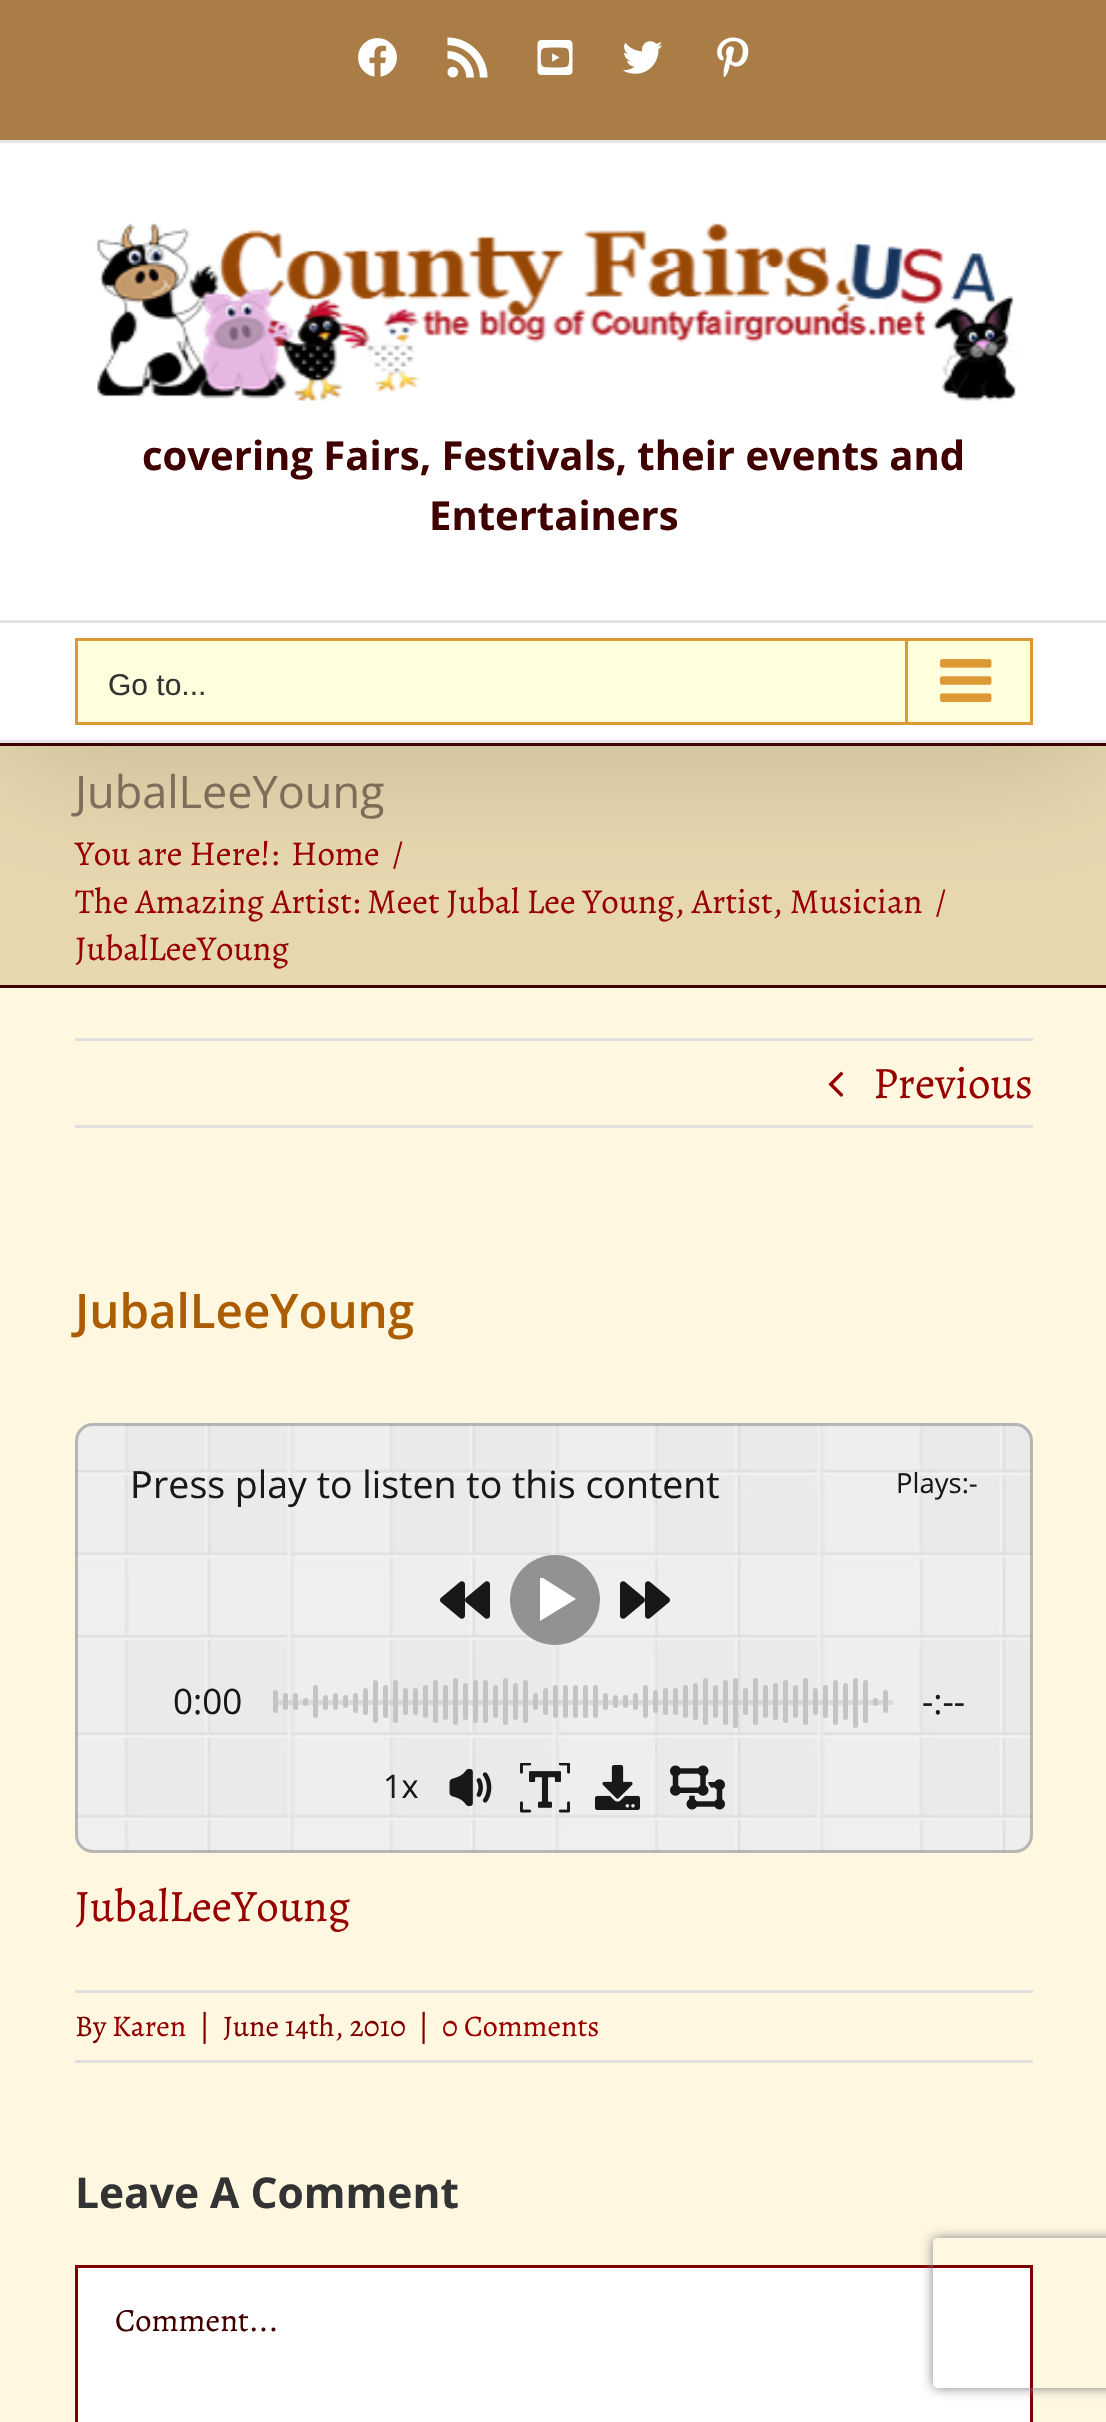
void draw(SkCanvas* canvas) {
    SkPaint paint;
    paint.setAntiAlias(true);
    canvas->clear(0xFFE8D8B0);
    paint.setColor(0xFF400000);
    canvas->drawRect(SkRect::MakeXYWH(0, 743, 1106, 3), paint);
    paint.setColor(0x24000000);
    paint.setMaskFilter(SkMaskFilter::MakeBlur(kNormal_SkBlurStyle, 62.5f));
    canvas->drawRect(SkRect::MakeXYWH(5, 30, 1098, 733), paint);
    paint.setMaskFilter(nullptr);
    paint.setColor(0xFFAA7D46);
    canvas->drawRect(SkRect::MakeXYWH(0, 0, 1106, 140), paint);
    paint.setColor(0xFFE5E5E5);
    canvas->drawRect(SkRect::MakeXYWH(0, 140, 1106, 3), paint);
    canvas->drawImageRect(SkImages::DeferredFromEncodedData(SkData::MakeFromFileName("img1.png")), SkRect::MakeXYWH(358, 38, 39, 39), SkSamplingOptions());
    canvas->drawImageRect(SkImages::DeferredFromEncodedData(SkData::MakeFromFileName("img2.png")), SkRect::MakeXYWH(447, 37, 41, 41), SkSamplingOptions());
    canvas->drawImageRect(SkImages::DeferredFromEncodedData(SkData::MakeFromFileName("img3.png")), SkRect::MakeXYWH(537, 40, 36, 35), SkSamplingOptions());
    canvas->drawImageRect(SkImages::DeferredFromEncodedData(SkData::MakeFromFileName("img4.png")), SkRect::MakeXYWH(622, 41, 41, 33), SkSamplingOptions());
    canvas->drawImageRect(SkImages::DeferredFromEncodedData(SkData::MakeFromFileName("img5.png")), SkRect::MakeXYWH(717, 37, 32, 41), SkSamplingOptions());
    paint.setColor(0xFFFFFFFF);
    canvas->drawRect(SkRect::MakeXYWH(0, 143, 1106, 477), paint);
    paint.setColor(0xFFE5E5E5);
    canvas->drawRect(SkRect::MakeXYWH(0, 620, 1106, 3), paint);
    canvas->drawImageRect(SkImages::DeferredFromEncodedData(SkData::MakeFromFileName("img6.png")), SkRect::MakeXYWH(95, 223, 923, 178), SkSamplingOptions());
    SkFont font1(fontMgr->matchFamilyStyle("Open Sans", SkFontStyle::Bold()), 40);
    font1.setSubpixel(true);
    paint.setColor(0xFF400000);
    canvas->drawString("covering Fairs, Festivals, their events and", 142, 470, font1, paint);
    canvas->drawString("Entertainers", 429, 530, font1, paint);
    paint.setColor(0xFFFFFFFF);
    canvas->drawRect(SkRect::MakeXYWH(0, 623, 1106, 117), paint);
    paint.setColor(0xFFE5E5E5);
    canvas->drawRect(SkRect::MakeXYWH(0, 740, 1106, 3), paint);
    paint.setColor(0xFFFFFFDD);
    canvas->drawRect(SkRect::MakeXYWH(76.5f, 639.5f, 955, 84), paint);
    paint.setStyle(SkPaint::kStroke_Style);
    paint.setStrokeWidth(3);
    paint.setColor(0xFFDD9933);
    canvas->drawRect(SkRect::MakeXYWH(76.5f, 639.5f, 955, 84), paint);
    SkFont font2(fontMgr->matchFamilyStyle("Liberation Sans", SkFontStyle::Normal()), 30);
    font2.setSubpixel(true);
    paint.setStyle(SkPaint::kFill_Style);
    paint.setColor(0xFF333333);
    canvas->drawString("Go to...", 108, 695, font2, paint);
    paint.setColor(0xFFDD9933);
    canvas->drawRect(SkRect::MakeXYWH(905, 640, 3, 83), paint);
    canvas->drawImageRect(SkImages::DeferredFromEncodedData(SkData::MakeFromFileName("img7.png")), SkRect::MakeXYWH(940, 659, 52, 43), SkSamplingOptions());
    paint.setColor(0xFF400000);
    canvas->drawRect(SkRect::MakeXYWH(0, 985, 1106, 3), paint);
    SkFont font3(fontMgr->matchFamilyStyle("Open Sans", SkFontStyle::Normal()), 45);
    font3.setSubpixel(true);
    paint.setColor(0xFF7F6D5A);
    canvas->drawString("JubalLeeYoung", 75, 808, font3, paint);
    SkFont font4(fontMgr->matchFamilyStyle("Alegreya", SkFontStyle::Normal()), 35);
    font4.setSubpixel(true);
    paint.setColor(0xFF990000);
    canvas->drawString("You are Here!:", 75, 865, font4, paint);
    canvas->drawString("Home", 291, 865, font4, paint);
    canvas->drawString("/", 392, 865, font4, paint);
    canvas->drawString("The Amazing Artist: Meet Jubal Lee Young, Artist, Musician", 75, 913, font4, paint);
    canvas->drawString("/", 935, 913, font4, paint);
    canvas->drawString("JubalLeeYoung", 75, 960, font4, paint);
    paint.setColor(0xFFFFF7E0);
    canvas->drawRect(SkRect::MakeXYWH(0, 988, 1106, 1434), paint);
    paint.setColor(0xFFE0DEDE);
    canvas->drawRect(SkRect::MakeXYWH(75, 1038, 958, 3), paint);
    canvas->drawRect(SkRect::MakeXYWH(75, 1125, 958, 3), paint);
    canvas->drawImageRect(SkImages::DeferredFromEncodedData(SkData::MakeFromFileName("img8.png")), SkRect::MakeXYWH(828, 1071, 16, 26), SkSamplingOptions());
    SkFont font5(fontMgr->matchFamilyStyle("Alegreya", SkFontStyle::Normal()), 45);
    font5.setSubpixel(true);
    paint.setColor(0xFF990000);
    canvas->drawString("Previous", 873, 1098, font5, paint);
    SkFont font6(fontMgr->matchFamilyStyle("Open Sans", SkFontStyle(600, SkFontStyle::kNormal_Width, SkFontStyle::kUpright_Slant)), 47.5f);
    font6.setSubpixel(true);
    paint.setColor(0xFFAD5D01);
    canvas->drawString("JubalLeeYoung", 75, 1328, font6, paint);
    canvas->drawImageRect(SkImages::DeferredFromEncodedData(SkData::MakeFromFileName("img9.png")), SkRect::MakeXYWH(75, 1422, 958, 431), SkSamplingOptions());
    paint.setColor(0x61F2F2F2);
    canvas->drawRoundRect(SkRect::MakeXYWH(75, 1423, 958, 430), 18, 18, paint);
    paint.setStyle(SkPaint::kStroke_Style);
    paint.setColor(0x8F898989);
    canvas->drawRoundRect(SkRect::MakeXYWH(76.5f, 1424.5f, 955, 427), 16.5f, 16.5f, paint);
    SkFont font7(fontMgr->matchFamilyStyle("Noto Sans", SkFontStyle::Normal()), 37.5f);
    font7.setSubpixel(true);
    paint.setStyle(SkPaint::kFill_Style);
    paint.setColor(0xFF181818);
    canvas->drawString("P", 130, 1498, font7, paint);
    SkFont font8(fontMgr->matchFamilyStyle("Open Sans", SkFontStyle::Normal()), 37.5f);
    font8.setSubpixel(true);
    canvas->drawString("ress play to listen to this content", 153, 1498, font8, paint);
    SkFont font9(fontMgr->matchFamilyStyle("Open Sans", SkFontStyle::Normal()), 27.5f);
    font9.setSubpixel(true);
    canvas->drawString("Plays:-", 896, 1493, font9, paint);
    canvas->drawImageRect(SkImages::DeferredFromEncodedData(SkData::MakeFromFileName("img10.png")), SkRect::MakeXYWH(440, 1581, 50, 38), SkSamplingOptions());
    paint.setColor(0xFF929292);
    canvas->drawCircle(555, 1600, 45, paint);
    paint.setColor(0xFFFFFFFF);
    canvas->drawPath(SkPathBuilder().moveTo(543, 1578).lineTo(576, 1599).lineTo(540, 1621).lineTo(540, 1578).close().detach(), paint);
    canvas->drawImageRect(SkImages::DeferredFromEncodedData(SkData::MakeFromFileName("img11.png")), SkRect::MakeXYWH(620, 1581, 50, 38), SkSamplingOptions());
    SkFont font10(fontMgr->matchFamilyStyle("Open Sans", SkFontStyle::Normal()), 35);
    font10.setSubpixel(true);
    paint.setColor(0xFF181818);
    canvas->drawString("0:00", 173, 1714, font10, paint);
    paint.setColor(0x4AADA9A9);
    canvas->drawRect(SkRect::MakeXYWH(273, 1700, 620, 5), paint);
    paint.setColor(0xFFC4C4C4);
    canvas->drawRoundRect(SkRect::MakeXYWH(273, 1690, 5, 23), 2.5f, 2.5f, paint);
    canvas->drawRoundRect(SkRect::MakeXYWH(283, 1693, 5, 17), 2.5f, 2.5f, paint);
    canvas->drawRoundRect(SkRect::MakeXYWH(293, 1693, 5, 17), 2.5f, 2.5f, paint);
    canvas->drawRoundRect(SkRect::MakeXYWH(303, 1698, 5, 8), 2.5f, 2.5f, paint);
    canvas->drawRoundRect(SkRect::MakeXYWH(313, 1685, 5, 33), 2.5f, 2.5f, paint);
    canvas->drawRoundRect(SkRect::MakeXYWH(323, 1695, 5, 15), 2.5f, 2.5f, paint);
    canvas->drawRoundRect(SkRect::MakeXYWH(333, 1693, 5, 17), 2.5f, 2.5f, paint);
    canvas->drawRoundRect(SkRect::MakeXYWH(343, 1695, 5, 13), 2.5f, 2.5f, paint);
    canvas->drawRoundRect(SkRect::MakeXYWH(353, 1693, 5, 20), 2.5f, 2.5f, paint);
    canvas->drawRoundRect(SkRect::MakeXYWH(363, 1688, 5, 27), 2.5f, 2.5f, paint);
    canvas->drawRoundRect(SkRect::MakeXYWH(373, 1680, 5, 43), 2.5f, 2.5f, paint);
    canvas->drawRoundRect(SkRect::MakeXYWH(383, 1685, 5, 33), 2.5f, 2.5f, paint);
    canvas->drawRoundRect(SkRect::MakeXYWH(393, 1680, 5, 43), 2.5f, 2.5f, paint);
    canvas->drawRoundRect(SkRect::MakeXYWH(403, 1688, 5, 27), 2.5f, 2.5f, paint);
    canvas->drawRoundRect(SkRect::MakeXYWH(413, 1688, 5, 27), 2.5f, 2.5f, paint);
    canvas->drawRoundRect(SkRect::MakeXYWH(423, 1685, 5, 33), 2.5f, 2.5f, paint);
    canvas->drawRoundRect(SkRect::MakeXYWH(433, 1680, 5, 43), 2.5f, 2.5f, paint);
    canvas->drawRoundRect(SkRect::MakeXYWH(443, 1685, 5, 35), 2.5f, 2.5f, paint);
    canvas->drawRoundRect(SkRect::MakeXYWH(453, 1678, 5, 47), 2.5f, 2.5f, paint);
    canvas->drawRoundRect(SkRect::MakeXYWH(463, 1683, 5, 37), 2.5f, 2.5f, paint);
    canvas->drawRoundRect(SkRect::MakeXYWH(473, 1680, 5, 43), 2.5f, 2.5f, paint);
    canvas->drawRoundRect(SkRect::MakeXYWH(483, 1680, 5, 43), 2.5f, 2.5f, paint);
    canvas->drawRoundRect(SkRect::MakeXYWH(493, 1685, 5, 33), 2.5f, 2.5f, paint);
    canvas->drawRoundRect(SkRect::MakeXYWH(503, 1678, 5, 47), 2.5f, 2.5f, paint);
    canvas->drawRoundRect(SkRect::MakeXYWH(513, 1683, 5, 37), 2.5f, 2.5f, paint);
    canvas->drawRoundRect(SkRect::MakeXYWH(523, 1680, 5, 43), 2.5f, 2.5f, paint);
    canvas->drawRoundRect(SkRect::MakeXYWH(533, 1693, 5, 17), 2.5f, 2.5f, paint);
    canvas->drawRoundRect(SkRect::MakeXYWH(543, 1688, 5, 27), 2.5f, 2.5f, paint);
    canvas->drawRoundRect(SkRect::MakeXYWH(553, 1685, 5, 33), 2.5f, 2.5f, paint);
    canvas->drawRoundRect(SkRect::MakeXYWH(563, 1685, 5, 33), 2.5f, 2.5f, paint);
    canvas->drawRoundRect(SkRect::MakeXYWH(573, 1685, 5, 33), 2.5f, 2.5f, paint);
    canvas->drawRoundRect(SkRect::MakeXYWH(583, 1685, 5, 33), 2.5f, 2.5f, paint);
    canvas->drawRoundRect(SkRect::MakeXYWH(593, 1685, 5, 33), 2.5f, 2.5f, paint);
    canvas->drawRoundRect(SkRect::MakeXYWH(603, 1693, 5, 17), 2.5f, 2.5f, paint);
    canvas->drawRoundRect(SkRect::MakeXYWH(613, 1695, 5, 13), 2.5f, 2.5f, paint);
    canvas->drawRoundRect(SkRect::MakeXYWH(623, 1695, 5, 13), 2.5f, 2.5f, paint);
    canvas->drawRoundRect(SkRect::MakeXYWH(633, 1693, 5, 17), 2.5f, 2.5f, paint);
    canvas->drawRoundRect(SkRect::MakeXYWH(643, 1685, 5, 33), 2.5f, 2.5f, paint);
    canvas->drawRoundRect(SkRect::MakeXYWH(653, 1690, 5, 23), 2.5f, 2.5f, paint);
    canvas->drawRoundRect(SkRect::MakeXYWH(663, 1688, 5, 27), 2.5f, 2.5f, paint);
    canvas->drawRoundRect(SkRect::MakeXYWH(673, 1688, 5, 27), 2.5f, 2.5f, paint);
    canvas->drawRoundRect(SkRect::MakeXYWH(683, 1685, 5, 33), 2.5f, 2.5f, paint);
    canvas->drawRoundRect(SkRect::MakeXYWH(693, 1683, 5, 37), 2.5f, 2.5f, paint);
    canvas->drawRoundRect(SkRect::MakeXYWH(703, 1678, 5, 47), 2.5f, 2.5f, paint);
    canvas->drawRoundRect(SkRect::MakeXYWH(713, 1685, 5, 33), 2.5f, 2.5f, paint);
    canvas->drawRoundRect(SkRect::MakeXYWH(723, 1680, 5, 45), 2.5f, 2.5f, paint);
    canvas->drawRoundRect(SkRect::MakeXYWH(733, 1678, 5, 50), 2.5f, 2.5f, paint);
    canvas->drawRoundRect(SkRect::MakeXYWH(743, 1688, 5, 27), 2.5f, 2.5f, paint);
    canvas->drawRoundRect(SkRect::MakeXYWH(753, 1678, 5, 47), 2.5f, 2.5f, paint);
    canvas->drawRoundRect(SkRect::MakeXYWH(763, 1685, 5, 33), 2.5f, 2.5f, paint);
    canvas->drawRoundRect(SkRect::MakeXYWH(773, 1683, 5, 37), 2.5f, 2.5f, paint);
    canvas->drawRoundRect(SkRect::MakeXYWH(783, 1680, 5, 43), 2.5f, 2.5f, paint);
    canvas->drawRoundRect(SkRect::MakeXYWH(793, 1685, 5, 33), 2.5f, 2.5f, paint);
    canvas->drawRoundRect(SkRect::MakeXYWH(803, 1678, 5, 47), 2.5f, 2.5f, paint);
    canvas->drawRoundRect(SkRect::MakeXYWH(813, 1688, 5, 27), 2.5f, 2.5f, paint);
    canvas->drawRoundRect(SkRect::MakeXYWH(823, 1685, 5, 33), 2.5f, 2.5f, paint);
    canvas->drawRoundRect(SkRect::MakeXYWH(833, 1680, 5, 45), 2.5f, 2.5f, paint);
    canvas->drawRoundRect(SkRect::MakeXYWH(843, 1683, 5, 37), 2.5f, 2.5f, paint);
    canvas->drawRoundRect(SkRect::MakeXYWH(853, 1678, 5, 50), 2.5f, 2.5f, paint);
    canvas->drawRoundRect(SkRect::MakeXYWH(863, 1680, 5, 43), 2.5f, 2.5f, paint);
    canvas->drawRoundRect(SkRect::MakeXYWH(873, 1698, 5, 8), 2.5f, 2.5f, paint);
    canvas->drawRoundRect(SkRect::MakeXYWH(883, 1690, 5, 23), 2.5f, 2.5f, paint);
    paint.setColor(0xFF181818);
    canvas->drawString("-:--", 922, 1714, font10, paint);
    SkFont font11(fontMgr->matchFamilyStyle("Open Sans", SkFontStyle::Normal()), 32.5f);
    font11.setSubpixel(true);
    canvas->drawString("1x", 383, 1798, font11, paint);
    canvas->drawImageRect(SkImages::DeferredFromEncodedData(SkData::MakeFromFileName("img12.png")), SkRect::MakeXYWH(449, 1768, 43, 39), SkSamplingOptions());
    canvas->drawImageRect(SkImages::DeferredFromEncodedData(SkData::MakeFromFileName("img13.png")), SkRect::MakeXYWH(520, 1763, 50, 50), SkSamplingOptions());
    canvas->drawImageRect(SkImages::DeferredFromEncodedData(SkData::MakeFromFileName("img14.png")), SkRect::MakeXYWH(595, 1765, 45, 45), SkSamplingOptions());
    canvas->drawImageRect(SkImages::DeferredFromEncodedData(SkData::MakeFromFileName("img15.png")), SkRect::MakeXYWH(670, 1765, 55, 45), SkSamplingOptions());
    paint.setColor(0xFF990000);
    canvas->drawString("JubalLeeYoung", 75, 1921, font5, paint);
    paint.setColor(0xFFE0DEDE);
    canvas->drawRect(SkRect::MakeXYWH(75, 1990, 958, 3), paint);
    canvas->drawRect(SkRect::MakeXYWH(75, 2060, 958, 3), paint);
    SkFont font12(fontMgr->matchFamilyStyle("Alegreya", SkFontStyle::Normal()), 30);
    font12.setSubpixel(true);
    paint.setColor(0xFF800000);
    canvas->drawString("By", 75, 2036, font12, paint);
    paint.setColor(0xFF990000);
    canvas->drawString("Karen", 112, 2036, font12, paint);
    paint.setColor(0xFF800000);
    canvas->drawString("|", 199, 2036, font12, paint);
    canvas->drawString("June 14th, 2010", 223, 2036, font12, paint);
    canvas->drawString("|", 418, 2036, font12, paint);
    paint.setColor(0xFF990000);
    canvas->drawString("0 Comments", 442, 2036, font12, paint);
    SkFont font13(fontMgr->matchFamilyStyle("Open Sans", SkFontStyle::Bold()), 42.5f);
    font13.setSubpixel(true);
    paint.setColor(0xFF333333);
    canvas->drawString("Leave A Comment", 75, 2208, font13, paint);
    paint.setColor(0xFFFFFFFF);
    canvas->drawRect(SkRect::MakeXYWH(76.5f, 2266.5f, 955, 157), paint);
    paint.setStyle(SkPaint::kStroke_Style);
    paint.setColor(0xFF800000);
    canvas->drawRect(SkRect::MakeXYWH(76.5f, 2266.5f, 955, 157), paint);
    SkFont font14(fontMgr->matchFamilyStyle("Alegreya", SkFontStyle::Normal()), 32.5f);
    font14.setSubpixel(true);
    paint.setStyle(SkPaint::kFill_Style);
    paint.setColor(0xFF400000);
    canvas->drawString("Comment...", 115, 2331, font14, paint);
    canvas->save();
    canvas->clipPath(SkPathBuilder(SkPathFillType::kEvenOdd).moveTo(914, 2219).lineTo(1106, 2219).lineTo(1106, 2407).lineTo(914, 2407).close().moveTo(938, 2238).lineTo(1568, 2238).cubicTo(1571, 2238, 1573, 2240, 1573, 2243).lineTo(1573, 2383).cubicTo(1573, 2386, 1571, 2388, 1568, 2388).lineTo(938, 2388).cubicTo(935, 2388, 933, 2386, 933, 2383).lineTo(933, 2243).cubicTo(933, 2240, 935, 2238, 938, 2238).close().detach(), true);
    paint.setColor(0xFF808080);
    paint.setMaskFilter(SkMaskFilter::MakeBlur(kNormal_SkBlurStyle, 6));
    canvas->drawRoundRect(SkRect::MakeXYWH(933, 2238, 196, 150), 5, 5, paint);
    paint.setMaskFilter(nullptr);
    canvas->restore();
}
